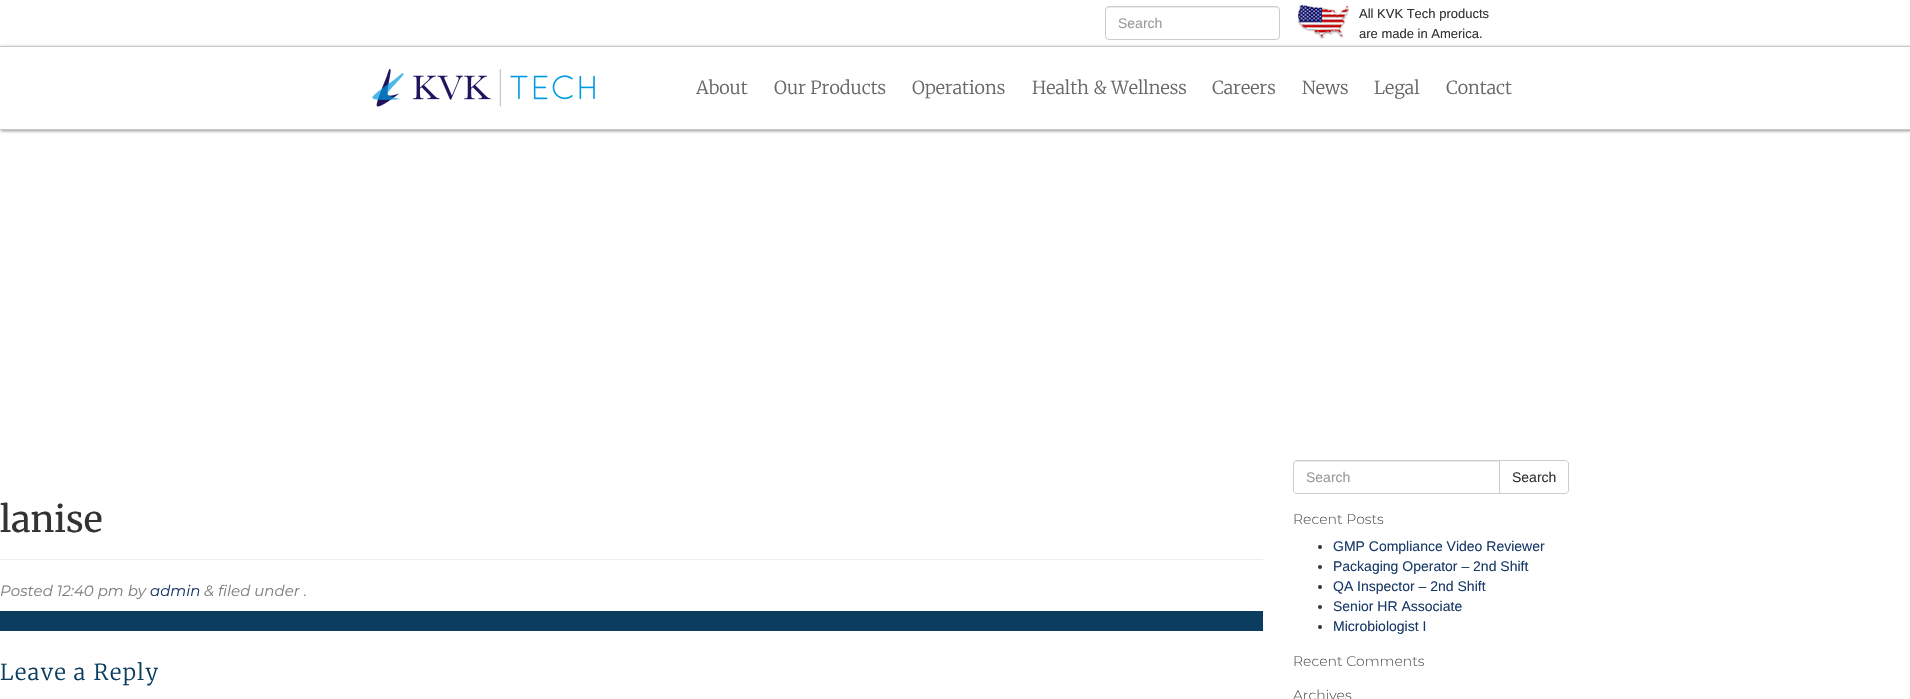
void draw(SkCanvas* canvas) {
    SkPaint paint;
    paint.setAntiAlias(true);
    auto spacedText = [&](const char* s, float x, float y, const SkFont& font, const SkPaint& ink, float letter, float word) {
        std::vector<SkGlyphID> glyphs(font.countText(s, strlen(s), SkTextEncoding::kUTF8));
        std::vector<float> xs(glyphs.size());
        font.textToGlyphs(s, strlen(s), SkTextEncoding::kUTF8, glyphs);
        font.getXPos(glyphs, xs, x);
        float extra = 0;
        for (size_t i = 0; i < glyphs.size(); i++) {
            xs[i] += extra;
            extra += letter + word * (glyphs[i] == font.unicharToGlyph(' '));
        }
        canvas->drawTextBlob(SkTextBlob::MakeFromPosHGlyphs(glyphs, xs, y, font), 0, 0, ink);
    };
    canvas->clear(0xFFFFFFFF);
    paint.setColor(0xFFECECEC);
    canvas->drawPath(SkPathBuilder().moveTo(1109, 8).lineTo(1276, 8).cubicTo(1278, 8, 1279, 9, 1279, 11).lineTo(1279, 10).cubicTo(1279, 8, 1278, 7, 1276, 7).lineTo(1109, 7).cubicTo(1107, 7, 1106, 8, 1106, 10).lineTo(1106, 11).cubicTo(1106, 9, 1107, 8, 1109, 8).close().detach(), paint);
    paint.setStyle(SkPaint::kStroke_Style);
    paint.setStrokeWidth(1);
    paint.setColor(0xFFCCCCCC);
    canvas->drawRoundRect(SkRect::MakeXYWH(1105.5f, 6.5f, 174, 33), 3.5f, 3.5f, paint);
    SkFont font1(fontMgr->matchFamilyStyle("Liberation Sans", SkFontStyle::Normal()), 14);
    font1.setSubpixel(true);
    paint.setStyle(SkPaint::kFill_Style);
    paint.setColor(0xFF999999);
    canvas->drawString("Search", 1118, 28, font1, paint);
    canvas->drawImageRect(SkImages::DeferredFromEncodedData(SkData::MakeFromFileName("img1.png")), SkRect::MakeXYWH(1298, 5, 51, 34), SkSamplingOptions());
    SkFont font2(fontMgr->matchFamilyStyle("Liberation Sans", SkFontStyle::Normal()), 13);
    font2.setSubpixel(true);
    paint.setColor(0xFF333333);
    canvas->drawString("All KVK Tech products", 1359, 18, font2, paint);
    canvas->drawString("are made in America.", 1359, 38, font2, paint);
    canvas->save();
    canvas->clipPath(SkPathBuilder(SkPathFillType::kEvenOdd).moveTo(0, 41).lineTo(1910, 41).lineTo(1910, 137).lineTo(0, 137).close().moveTo(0, 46).lineTo(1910, 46).lineTo(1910, 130).lineTo(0, 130).close().detach(), true);
    paint.setColor(0xFF988F8F);
    paint.setMaskFilter(SkMaskFilter::MakeBlur(kNormal_SkBlurStyle, 1.5f));
    canvas->drawRect(SkRect::MakeXYWH(1, 47, 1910, 84), paint);
    paint.setMaskFilter(nullptr);
    canvas->restore();
    paint.setColor(0xFFC8C8C8);
    canvas->drawRect(SkRect::MakeXYWH(0, 46, 1910, 1), paint);
    canvas->drawRect(SkRect::MakeXYWH(0, 129, 1910, 1), paint);
    canvas->drawImageRect(SkImages::DeferredFromEncodedData(SkData::MakeFromFileName("img2.png")), SkRect::MakeXYWH(372, 68, 223, 39), SkSamplingOptions());
    SkFont font3(fontMgr->matchFamilyStyle("Merriweather", SkFontStyle(300, SkFontStyle::kNormal_Width, SkFontStyle::kUpright_Slant)), 18);
    font3.setSubpixel(true);
    paint.setColor(0xFF676767);
    canvas->drawString("About", 696, 94, font3, paint);
    canvas->drawString("Our Products", 774, 94, font3, paint);
    canvas->drawString("Operations", 912, 94, font3, paint);
    canvas->drawString("Health & Wellness", 1032, 94, font3, paint);
    canvas->drawString("Careers", 1212, 94, font3, paint);
    canvas->drawString("News", 1302, 94, font3, paint);
    canvas->drawString("Legal", 1374, 94, font3, paint);
    canvas->drawString("Contact", 1446, 94, font3, paint);
    paint.setColor(0xFFEEEEEE);
    canvas->drawRect(SkRect::MakeXYWH(0, 559, 1263, 1), paint);
    SkFont font4(fontMgr->matchFamilyStyle("Merriweather", SkFontStyle::Normal()), 36);
    font4.setSubpixel(true);
    paint.setColor(0xFF333333);
    canvas->drawString("lanise", 0, 532, font4, paint);
    SkFont font5(fontMgr->matchFamilyStyle("Montserrat", SkFontStyle::Italic()), 15);
    font5.setSubpixel(true);
    paint.setColor(0xFF808080);
    canvas->drawString("Posted 12:40 pm by", 0, 596, font5, paint);
    paint.setColor(0xFF193A67);
    canvas->drawString("admin", 150, 596, font5, paint);
    paint.setColor(0xFF808080);
    canvas->drawString("& filed under .", 204, 596, font5, paint);
    paint.setColor(0xFF0B3D5F);
    canvas->drawRect(SkRect::MakeXYWH(0, 611, 1263, 20), paint);
    SkFont font6(fontMgr->matchFamilyStyle("Merriweather", SkFontStyle(300, SkFontStyle::kNormal_Width, SkFontStyle::kUpright_Slant)), 22);
    font6.setSubpixel(true);
    spacedText("Leave a Reply", 0, 680, font6, paint, 1.5f, 0);
    paint.setStyle(SkPaint::kStroke_Style);
    paint.setColor(0xFFCCCCCC);
    canvas->drawPath(SkPathBuilder().moveTo(1499.5f, 460.5f).lineTo(1565, 460.5f).cubicTo(1567, 460.5f, 1568.5f, 462, 1568.5f, 464).lineTo(1568.5f, 490).cubicTo(1568.5f, 492, 1567, 493.5f, 1565, 493.5f).lineTo(1499.5f, 493.5f).close().detach(), paint);
    paint.setStyle(SkPaint::kFill_Style);
    paint.setColor(0xFFFFFFFF);
    canvas->drawPath(SkPathBuilder().moveTo(1297, 460).lineTo(1500, 460).lineTo(1500, 494).lineTo(1297, 494).cubicTo(1295, 494, 1293, 492, 1293, 490).lineTo(1293, 464).cubicTo(1293, 462, 1295, 460, 1297, 460).close().detach(), paint);
    paint.setColor(0xFFECECEC);
    canvas->drawPath(SkPathBuilder().moveTo(1297, 462).lineTo(1499, 462).lineTo(1499, 461).lineTo(1296, 461).cubicTo(1294, 462, 1294, 463, 1294, 465).cubicTo(1294, 463, 1295, 462, 1297, 462).close().detach(), paint);
    paint.setStyle(SkPaint::kStroke_Style);
    paint.setColor(0xFFCCCCCC);
    canvas->drawPath(SkPathBuilder().moveTo(1297, 460.5f).lineTo(1499.5f, 460.5f).lineTo(1499.5f, 493.5f).lineTo(1297, 493.5f).cubicTo(1295, 493.5f, 1293.5f, 492, 1293.5f, 490).lineTo(1293.5f, 464).cubicTo(1293.5f, 462, 1295, 460.5f, 1297, 460.5f).close().detach(), paint);
    paint.setStyle(SkPaint::kFill_Style);
    paint.setColor(0xFF999999);
    canvas->drawString("Search", 1306, 482, font1, paint);
    paint.setColor(0xFF333333);
    canvas->drawString("Search", 1512, 482, font1, paint);
    SkFont font7(fontMgr->matchFamilyStyle("Montserrat", SkFontStyle(300, SkFontStyle::kNormal_Width, SkFontStyle::kUpright_Slant)), 14);
    font7.setSubpixel(true);
    paint.setColor(0xFF565656);
    canvas->drawString("Recent Posts", 1293, 524, font7, paint);
    paint.setColor(0xFF333333);
    canvas->drawCircle(1320, 547, 2, paint);
    paint.setColor(0xFF193A67);
    canvas->drawString("GMP Compliance Video Reviewer", 1333, 551, font1, paint);
    paint.setColor(0xFF333333);
    canvas->drawCircle(1320, 567, 2, paint);
    paint.setColor(0xFF193A67);
    canvas->drawString("Packaging Operator – 2nd Shift", 1333, 571, font1, paint);
    paint.setColor(0xFF333333);
    canvas->drawCircle(1320, 587, 2, paint);
    paint.setColor(0xFF193A67);
    canvas->drawString("QA Inspector – 2nd Shift", 1333, 591, font1, paint);
    paint.setColor(0xFF333333);
    canvas->drawCircle(1320, 607, 2, paint);
    paint.setColor(0xFF193A67);
    canvas->drawString("Senior HR Associate", 1333, 611, font1, paint);
    paint.setColor(0xFF333333);
    canvas->drawCircle(1320, 627, 2, paint);
    paint.setColor(0xFF193A67);
    canvas->drawString("Microbiologist I", 1333, 631, font1, paint);
    paint.setColor(0xFF565656);
    canvas->drawString("Recent Comments", 1293, 666, font7, paint);
    canvas->drawString("Archives", 1293, 700, font7, paint);
}
